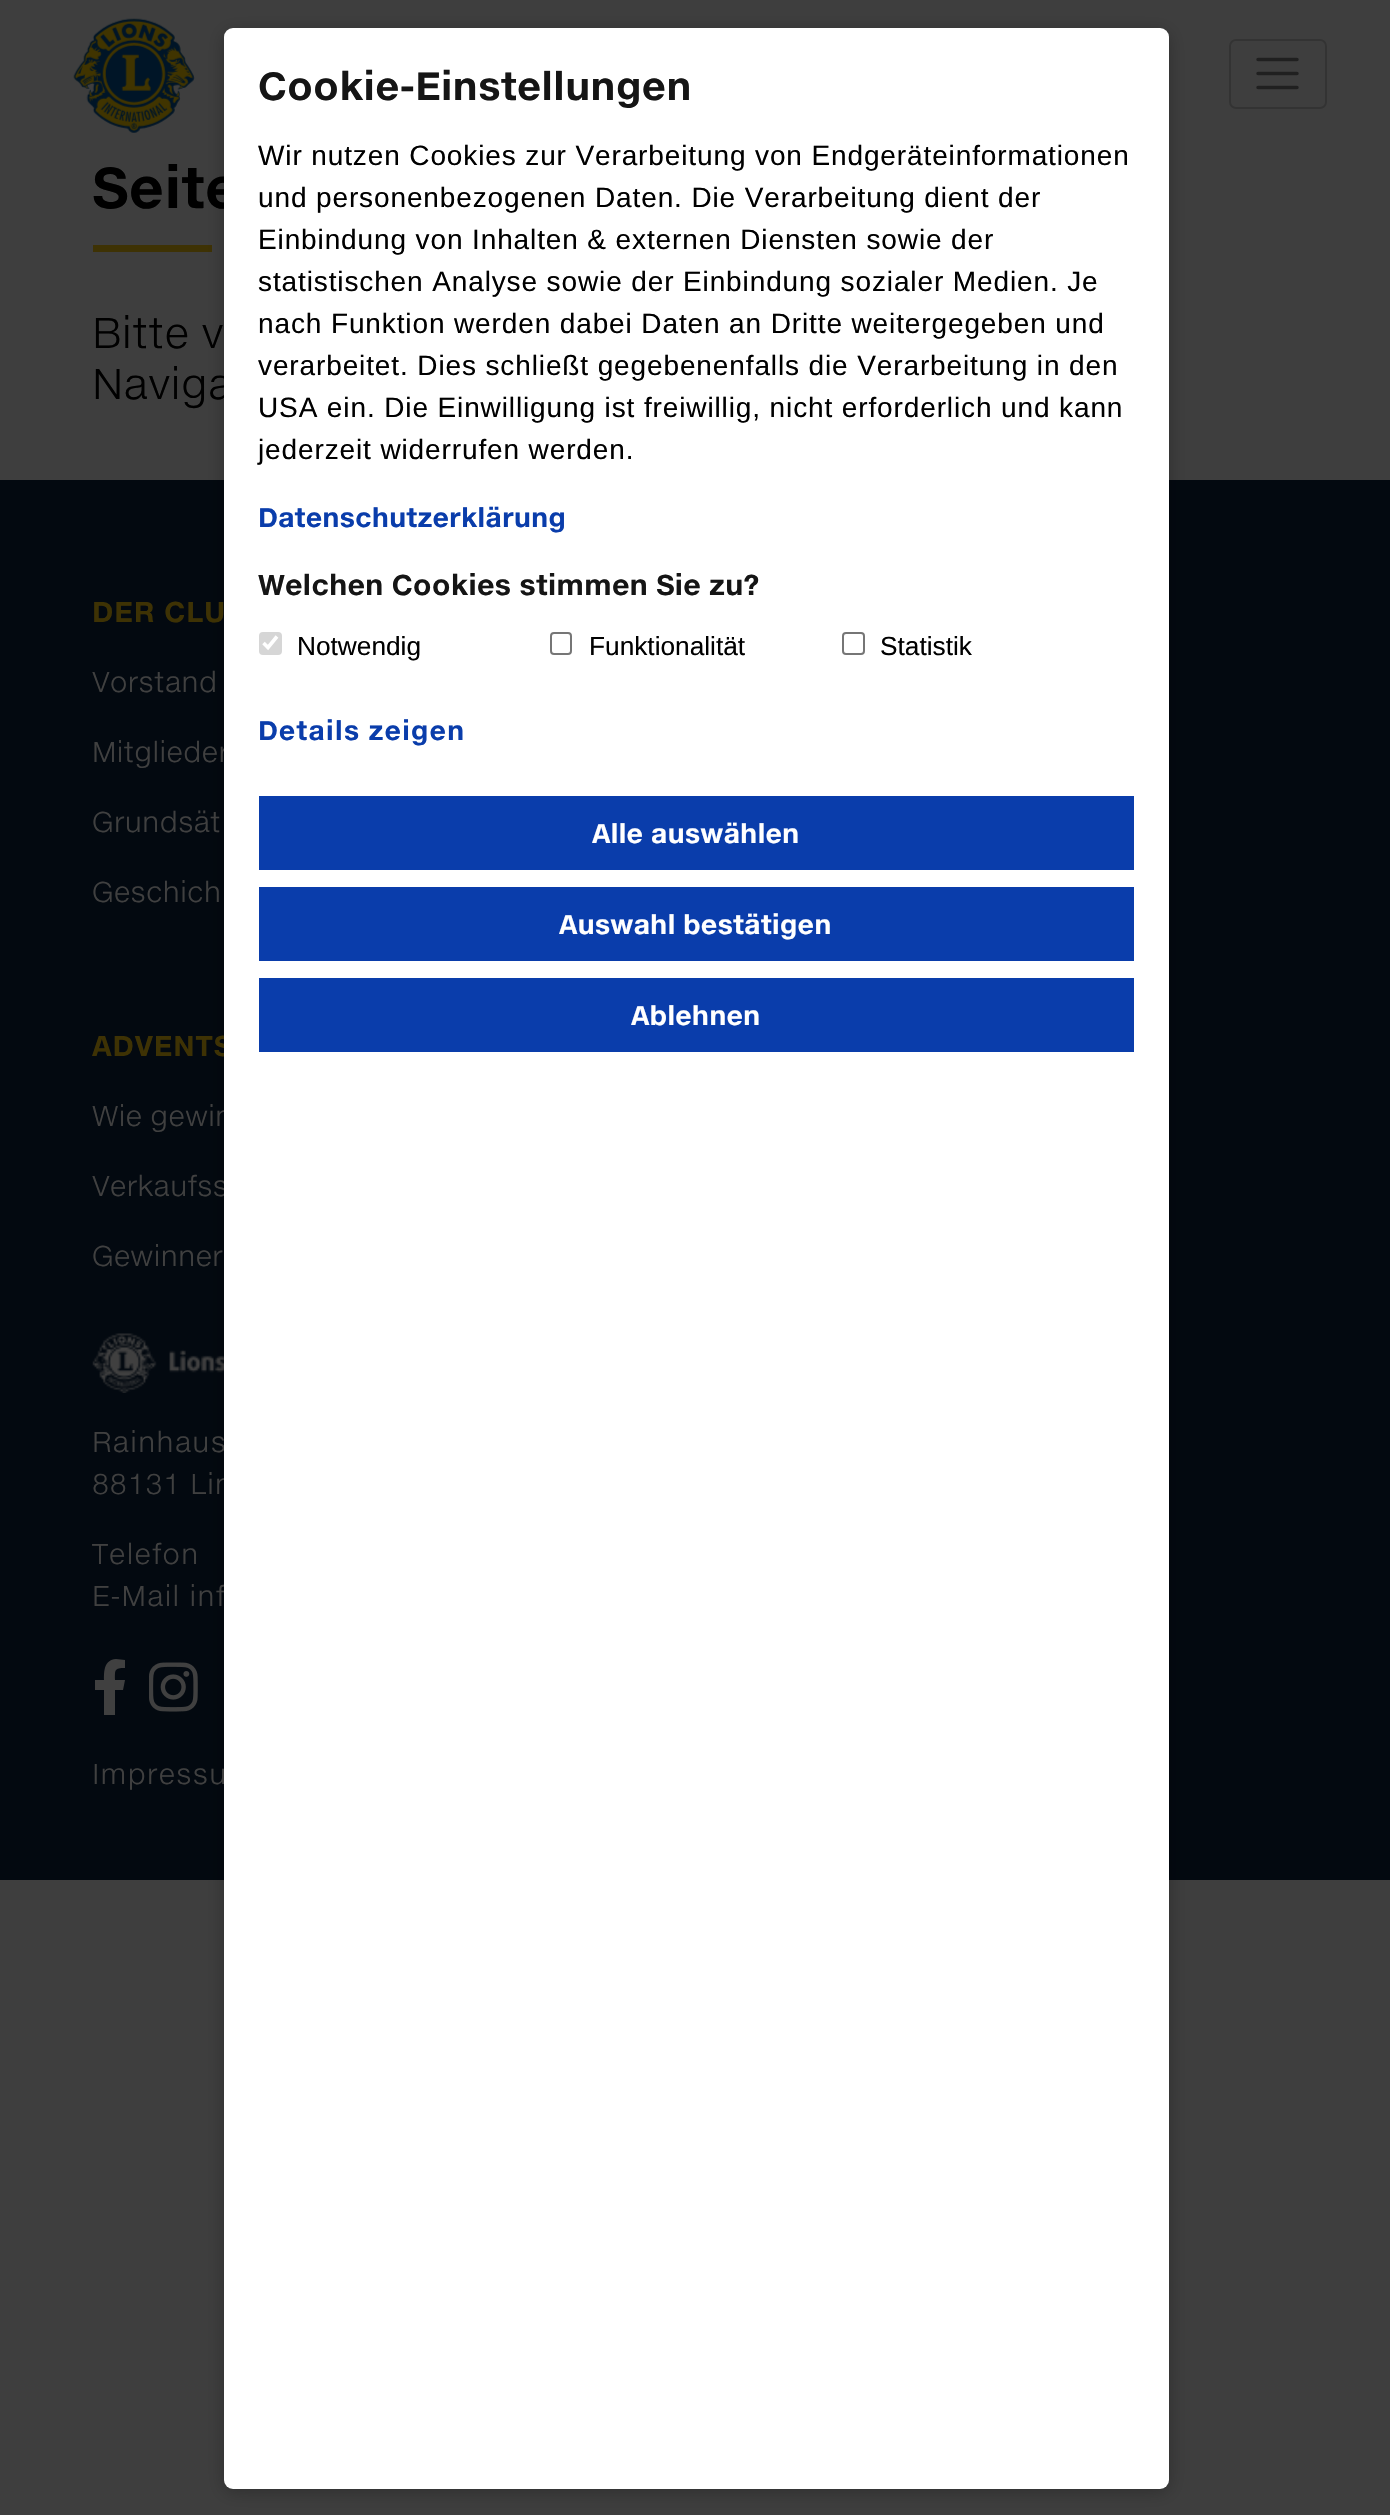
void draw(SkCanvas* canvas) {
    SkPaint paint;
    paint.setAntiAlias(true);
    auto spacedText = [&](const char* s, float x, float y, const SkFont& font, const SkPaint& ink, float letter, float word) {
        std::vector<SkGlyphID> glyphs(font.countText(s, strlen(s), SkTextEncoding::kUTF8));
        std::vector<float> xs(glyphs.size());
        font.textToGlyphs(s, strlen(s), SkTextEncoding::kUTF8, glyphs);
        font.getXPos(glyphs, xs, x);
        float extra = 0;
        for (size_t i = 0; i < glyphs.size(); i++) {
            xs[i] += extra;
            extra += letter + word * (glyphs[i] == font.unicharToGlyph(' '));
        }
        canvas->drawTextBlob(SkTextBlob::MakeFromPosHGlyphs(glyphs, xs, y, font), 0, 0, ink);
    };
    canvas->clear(0xFF3E3E3E);
    canvas->drawImageRect(SkImages::DeferredFromEncodedData(SkData::MakeFromFileName("img1.png")), SkRect::MakeXYWH(73, 18, 122, 115), SkSamplingOptions());
    paint.setStyle(SkPaint::kStroke_Style);
    paint.setStrokeWidth(2);
    paint.setColor(0xFF333333);
    canvas->drawRoundRect(SkRect::MakeXYWH(1230, 40, 96, 68), 6, 6, paint);
    paint.setStrokeWidth(3.5f);
    paint.setStrokeCap(SkPaint::kRound_Cap);
    paint.setColor(0xFF202020);
    canvas->drawPath(SkPathBuilder().moveTo(1258, 59.5f).lineTo(1297, 59.5f).moveTo(1258, 73.5f).lineTo(1297, 73.5f).moveTo(1258, 87.5f).lineTo(1297, 87.5f).detach(), paint);
    SkFont font1(fontMgr->matchFamilyStyle("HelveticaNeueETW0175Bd", SkFontStyle::Bold()), 56);
    font1.setSubpixel(true);
    paint.setStyle(SkPaint::kFill_Style);
    paint.setColor(0xFF000000);
    canvas->drawString("Seite", 92, 208, font1, paint);
    paint.setColor(0xFF3E3204);
    canvas->drawRect(SkRect::MakeXYWH(93, 245, 119, 7), paint);
    SkFont font2(fontMgr->matchFamilyStyle("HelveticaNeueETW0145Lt", SkFontStyle(300, SkFontStyle::kNormal_Width, SkFontStyle::kUpright_Slant)), 42);
    font2.setSubpixel(true);
    paint.setColor(0xFF000000);
    canvas->drawString("Bitte v", 92, 348, font2, paint);
    canvas->drawString("Naviga", 92, 399, font2, paint);
    paint.setColor(0xFF030910);
    canvas->drawRect(SkRect::MakeXYWH(0, 480, 1390, 1400), paint);
    canvas->drawImageRect(SkImages::DeferredFromEncodedData(SkData::MakeFromFileName("img2.png")), SkRect::MakeXYWH(92, 1333, 132, 60), SkSamplingOptions());
    canvas->drawImageRect(SkImages::DeferredFromEncodedData(SkData::MakeFromFileName("img3.png")), SkRect::MakeXYWH(149, 1662, 49, 50), SkSamplingOptions());
    paint.setColor(0x40000000);
    paint.setMaskFilter(SkMaskFilter::MakeBlur(kNormal_SkBlurStyle, 9));
    canvas->drawRoundRect(SkRect::MakeXYWH(224, 32, 945, 2460), 9, 9, paint);
    paint.setMaskFilter(nullptr);
    SkFont font3(fontMgr->matchFamilyStyle("HelveticaNeueETW0145Lt", SkFontStyle(300, SkFontStyle::kNormal_Width, SkFontStyle::kUpright_Slant)), 28);
    font3.setSubpixel(true);
    paint.setColor(0xFF404040);
    canvas->drawString("Mitglieder", 92, 762, font3, paint);
    SkFont font4(fontMgr->matchFamilyStyle("HelveticaNeueETW0175Bd", SkFontStyle::Bold()), 28);
    font4.setSubpixel(true);
    paint.setColor(0xFF3E3204);
    spacedText("ADVENTS", 92, 1056, font4, paint, 0.88f, 0);
    paint.setColor(0xFF404040);
    canvas->drawString("Wie gewin", 92, 1126, font3, paint);
    canvas->drawString("Verkaufss", 92, 1196, font3, paint);
    spacedText("Rainhaus", 92, 1452, font3, paint, 0.88f, 0);
    spacedText("88131 Lin", 92, 1494, font3, paint, 0.88f, 0);
    spacedText("E-Mail inf", 92, 1606, font3, paint, 0.88f, 0);
    paint.setColor(0xFFFFFFFF);
    canvas->drawRoundRect(SkRect::MakeXYWH(224, 28, 945, 2461), 9, 9, paint);
    SkFont font5(fontMgr->matchFamilyStyle("HelveticaNeueETW0175Bd", SkFontStyle::Bold()), 38.5f);
    font5.setSubpixel(true);
    paint.setColor(0xFF151515);
    canvas->drawString("Cookie-Einstellungen", 258, 100, font5, paint);
    SkFont font6(fontMgr->matchFamilyStyle("Liberation Sans", SkFontStyle::Normal()), 28);
    font6.setSubpixel(true);
    paint.setColor(0xFF000000);
    spacedText("Wir nutzen Cookies zur Verarbeitung von Endgeräteinformationen", 258, 165, font6, paint, 0.88f, 0);
    spacedText("und personenbezogenen Daten. Die Verarbeitung dient der", 258, 207, font6, paint, 0.88f, 0);
    spacedText("Einbindung von Inhalten & externen Diensten sowie der", 258, 249, font6, paint, 0.88f, 0);
    spacedText("statistischen Analyse sowie der Einbindung sozialer Medien. Je", 258, 291, font6, paint, 0.88f, 0);
    spacedText("nach Funktion werden dabei Daten an Dritte weitergegeben und", 258, 333, font6, paint, 0.88f, 0);
    spacedText("verarbeitet. Dies schließt gegebenenfalls die Verarbeitung in den", 258, 375, font6, paint, 0.88f, 0);
    spacedText("USA ein. Die Einwilligung ist freiwillig, nicht erforderlich und kann", 258, 417, font6, paint, 0.88f, 0);
    spacedText("jederzeit widerrufen werden.", 258, 459, font6, paint, 0.88f, 0);
    SkFont font7(fontMgr->matchFamilyStyle("HelveticaNeueETW0175Bd", SkFontStyle::Bold()), 26.25f);
    font7.setSubpixel(true);
    paint.setColor(0xFF0A3DAB);
    canvas->drawString("Datenschutzerklärung", 258, 527, font7, paint);
    paint.setColor(0xFF151515);
    canvas->drawString("Welchen Cookies stimmen Sie zu?", 258, 595, font4, paint);
    paint.setColor(0xFFD6D6D6);
    canvas->drawRoundRect(SkRect::MakeXYWH(259, 632, 23, 23), 4, 4, paint);
    paint.setStyle(SkPaint::kStroke_Style);
    paint.setStrokeWidth(3.6f);
    paint.setStrokeCap(SkPaint::kButt_Cap);
    paint.setColor(0xFFFFFFFF);
    canvas->drawPath(SkPathBuilder().moveTo(263.5f, 643).lineTo(268, 647.5f).lineTo(277, 636.5f).detach(), paint);
    SkFont font8(fontMgr->matchFamilyStyle("Liberation Sans", SkFontStyle::Normal()), 26.25f);
    font8.setSubpixel(true);
    paint.setStyle(SkPaint::kFill_Style);
    paint.setColor(0xFF000000);
    canvas->drawString("Notwendig", 297, 655, font8, paint);
    paint.setStyle(SkPaint::kStroke_Style);
    paint.setStrokeWidth(2);
    paint.setColor(0xFF767676);
    canvas->drawRoundRect(SkRect::MakeXYWH(551, 633, 20, 21), 3, 3, paint);
    paint.setStyle(SkPaint::kFill_Style);
    paint.setColor(0xFF000000);
    canvas->drawString("Funktionalität", 589, 655, font8, paint);
    paint.setStyle(SkPaint::kStroke_Style);
    paint.setColor(0xFF767676);
    canvas->drawRoundRect(SkRect::MakeXYWH(843, 633, 21, 21), 3, 3, paint);
    paint.setStyle(SkPaint::kFill_Style);
    paint.setColor(0xFF000000);
    canvas->drawString("Statistik", 880, 655, font8, paint);
    paint.setColor(0xFF0A3DAB);
    spacedText("Details zeigen", 258, 740, font7, paint, 0.88f, 0);
    canvas->drawRect(SkRect::MakeXYWH(259, 796, 875, 74), paint);
    paint.setColor(0xFFFFFFFF);
    canvas->drawString("Alle auswählen", 592, 843, font7, paint);
    paint.setColor(0xFF0A3DAB);
    canvas->drawRect(SkRect::MakeXYWH(259, 887, 875, 74), paint);
    paint.setColor(0xFFFFFFFF);
    canvas->drawString("Auswahl bestätigen", 559, 934, font7, paint);
    paint.setColor(0xFF0A3DAB);
    canvas->drawRect(SkRect::MakeXYWH(259, 978, 875, 74), paint);
    paint.setColor(0xFFFFFFFF);
    canvas->drawString("Ablehnen", 631, 1025, font7, paint);
    paint.setColor(0xFF3E3204);
    spacedText("DER CLU", 92, 622, font4, paint, 0.88f, 0);
    paint.setColor(0xFF404040);
    canvas->drawString("Vorstand", 92, 692, font3, paint);
    canvas->drawString("Grundsät", 92, 832, font3, paint);
    canvas->drawString("Geschich", 92, 902, font3, paint);
    canvas->drawString("Gewinner", 92, 1266, font3, paint);
    spacedText("Telefon", 92, 1564, font3, paint, 0.88f, 0);
    canvas->drawPath(SkPathBuilder().moveTo(123, 1690).lineTo(125, 1680).lineTo(115, 1680).cubicTo(115, 1670, 114, 1668, 125, 1668).lineTo(125, 1660).lineTo(116, 1659).cubicTo(104, 1660, 104, 1671, 104, 1680).lineTo(95, 1680).lineTo(95, 1690).lineTo(104, 1690).lineTo(104, 1715).lineTo(115, 1715).lineTo(115, 1690).close().detach(), paint);
    spacedText("Impressu", 92, 1784, font3, paint, 0.88f, 0);
}
